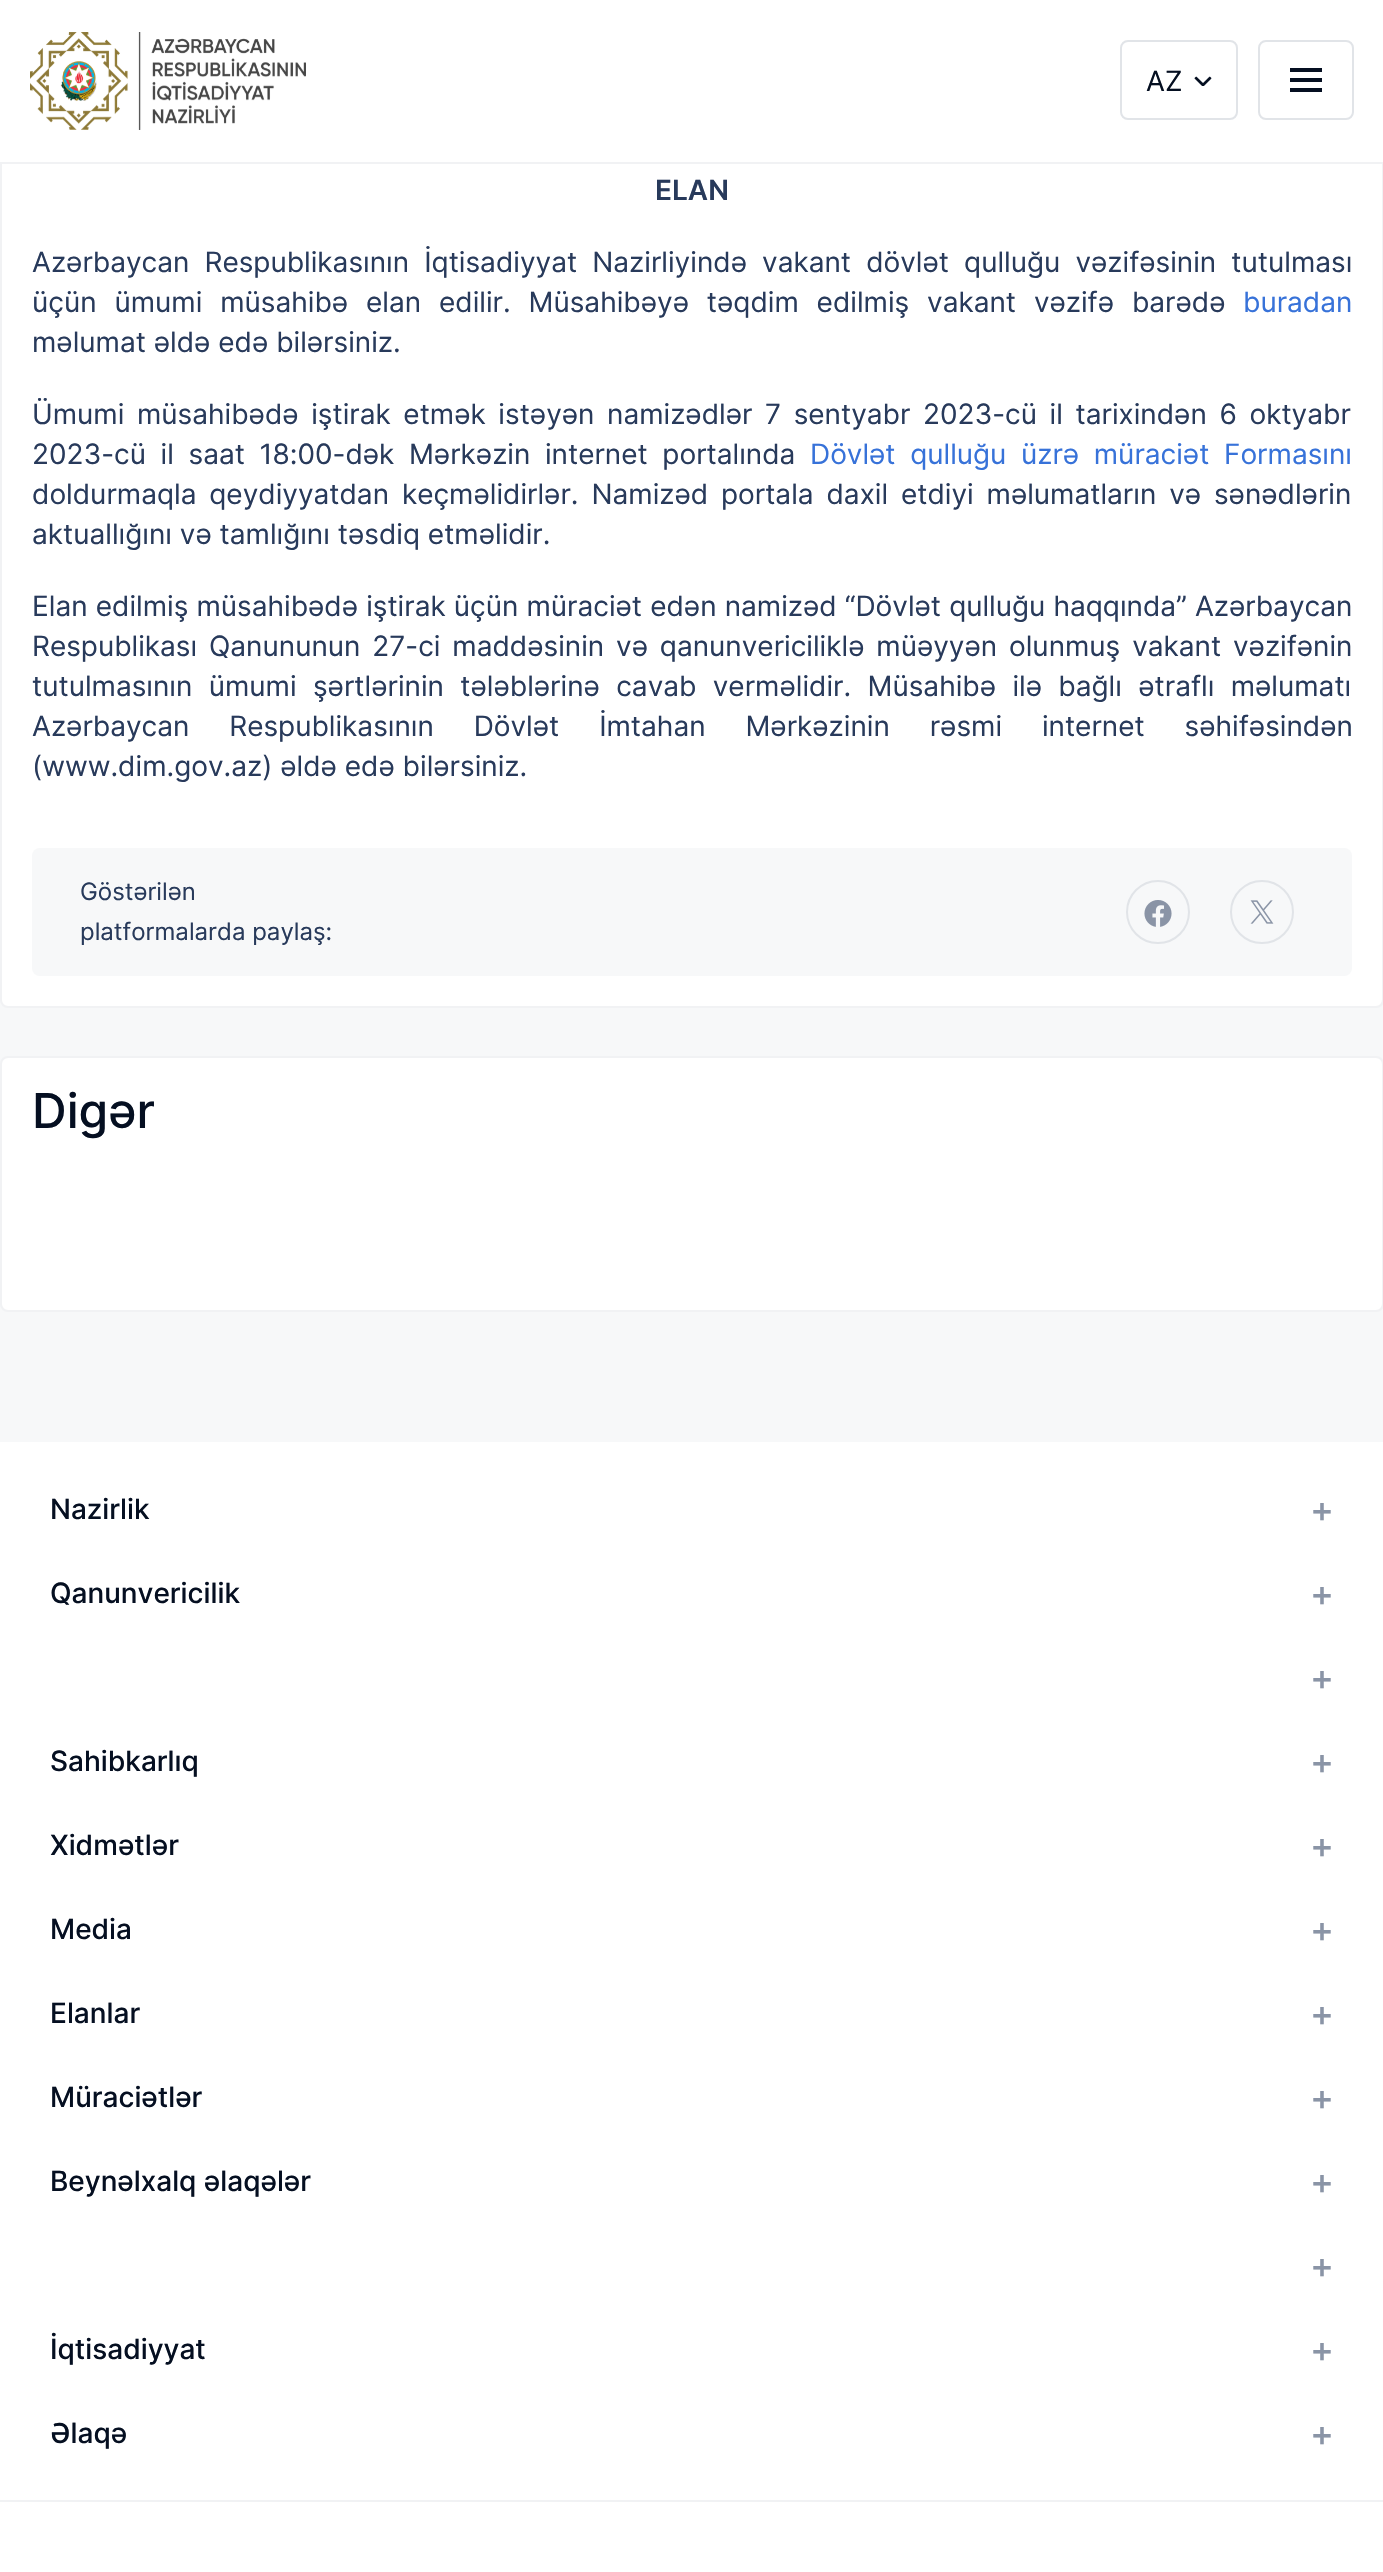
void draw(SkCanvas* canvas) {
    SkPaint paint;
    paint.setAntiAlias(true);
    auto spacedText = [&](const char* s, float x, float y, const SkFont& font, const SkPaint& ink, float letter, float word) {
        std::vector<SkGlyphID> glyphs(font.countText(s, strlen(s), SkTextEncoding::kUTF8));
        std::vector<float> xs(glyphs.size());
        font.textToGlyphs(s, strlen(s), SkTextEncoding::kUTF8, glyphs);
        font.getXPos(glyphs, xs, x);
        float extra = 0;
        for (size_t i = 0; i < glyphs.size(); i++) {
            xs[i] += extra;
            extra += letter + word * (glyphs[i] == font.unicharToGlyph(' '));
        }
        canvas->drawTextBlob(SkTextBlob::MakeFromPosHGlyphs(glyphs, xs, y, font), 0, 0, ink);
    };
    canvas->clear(0xFFF7F8F9);
    paint.setColor(0xFFFFFFFF);
    canvas->drawRoundRect(SkRect::MakeXYWH(1, -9, 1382, 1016), 7, 7, paint);
    paint.setStyle(SkPaint::kStroke_Style);
    paint.setStrokeWidth(2);
    paint.setColor(0xFFF1F2F4);
    canvas->drawRoundRect(SkRect::MakeXYWH(1, -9, 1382, 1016), 7, 7, paint);
    paint.setStyle(SkPaint::kFill_Style);
    canvas->drawRect(SkRect::MakeXYWH(0, 162, 1383, 2), paint);
    paint.setColor(0xFFFFFFFF);
    canvas->drawRect(SkRect::MakeXYWH(0, 0, 1383, 162), paint);
    canvas->drawImageRect(SkImages::DeferredFromEncodedData(SkData::MakeFromFileName("img1.png")), SkRect::MakeXYWH(30, 32, 276, 98), SkSamplingOptions());
    paint.setStyle(SkPaint::kStroke_Style);
    paint.setColor(0xFFE1E4E8);
    canvas->drawRoundRect(SkRect::MakeXYWH(1121, 41, 116, 78), 7, 7, paint);
    SkFont font1(fontMgr->matchFamilyStyle("Inter", SkFontStyle::Normal()), 28);
    font1.setSubpixel(true);
    paint.setStyle(SkPaint::kFill_Style);
    paint.setColor(0xFF050F21);
    canvas->drawString("AZ", 1146, 91, font1, paint);
    canvas->drawImageRect(SkImages::DeferredFromEncodedData(SkData::MakeFromFileName("img2.png")), SkRect::MakeXYWH(1194, 76, 18, 10), SkSamplingOptions());
    paint.setStyle(SkPaint::kStroke_Style);
    paint.setColor(0xFFE1E4E8);
    canvas->drawRoundRect(SkRect::MakeXYWH(1259, 41, 94, 78), 7, 7, paint);
    paint.setStyle(SkPaint::kFill_Style);
    paint.setColor(0xFF050F21);
    canvas->drawRect(SkRect::MakeXYWH(1290, 78, 32, 4), paint);
    canvas->drawRect(SkRect::MakeXYWH(1290, 68, 32, 4), paint);
    canvas->drawRect(SkRect::MakeXYWH(1290, 88, 32, 4), paint);
    SkFont font2(fontMgr->matchFamilyStyle("Inter", SkFontStyle(600, SkFontStyle::kNormal_Width, SkFontStyle::kUpright_Slant)), 28);
    font2.setSubpixel(true);
    paint.setColor(0xFF283A5B);
    canvas->drawString("ELAN", 655, 200, font2, paint);
    spacedText("Azərbaycan Respublikasının İqtisadiyyat Nazirliyində vakant dövlət qulluğu vəzifəsinin tutulması", 32, 272, font1, paint, 0, 7.25f);
    spacedText("üçün ümumi müsahibə elan edilir. Müsahibəyə təqdim edilmiş vakant vəzifə barədə", 32, 312, font1, paint, 0, 10);
    paint.setColor(0xFF3772D9);
    canvas->drawString("buradan", 1243, 312, font1, paint);
    paint.setColor(0xFF283A5B);
    canvas->drawString("məlumat əldə edə bilərsiniz.", 32, 352, font1, paint);
    spacedText("Ümumi müsahibədə iştirak etmək istəyən namizədlər 7 sentyabr 2023-cü il tarixindən 6 oktyabr", 32, 424, font1, paint, 0, 4.75f);
    spacedText("2023-cü il saat 18:00-dək Mərkəzin internet portalında", 32, 464, font1, paint, 0, 6.75f);
    paint.setColor(0xFF3772D9);
    spacedText("Dövlət qulluğu üzrə müraciət Formasını", 810, 464, font1, paint, 0, 6.75f);
    paint.setColor(0xFF283A5B);
    spacedText("doldurmaqla qeydiyyatdan keçməlidirlər. Namizəd portala daxil etdiyi məlumatların və sənədlərin", 32, 504, font1, paint, 0, 5);
    canvas->drawString("aktuallığını və tamlığını təsdiq etməlidir.", 32, 544, font1, paint);
    spacedText("Elan edilmiş müsahibədə iştirak üçün müraciət edən namizəd “Dövlət qulluğu haqqında” Azərbaycan", 32, 616, font1, paint, 0, 0.25f);
    spacedText("Respublikası Qanununun 27-ci maddəsinin və qanunvericiliklə müəyyən olunmuş vakant vəzifənin", 32, 656, font1, paint, 0, 4);
    spacedText("tutulmasının ümumi şərtlərinin tələblərinə cavab verməlidir. Müsahibə ilə bağlı ətraflı məlumatı", 32, 696, font1, paint, 0, 8.5f);
    spacedText("Azərbaycan Respublikasının Dövlət İmtahan Mərkəzinin rəsmi internet səhifəsindən", 32, 736, font1, paint, 0, 32);
    canvas->drawString("(www.dim.gov.az) əldə edə bilərsiniz.", 32, 776, font1, paint);
    paint.setColor(0xFFF7F8F9);
    canvas->drawRoundRect(SkRect::MakeXYWH(32, 848, 1320, 128), 8, 8, paint);
    SkFont font3(fontMgr->matchFamilyStyle("Inter", SkFontStyle::Normal()), 24);
    font3.setSubpixel(true);
    paint.setColor(0xFF283A5B);
    canvas->drawString("Göstərilən", 80, 900, font3, paint);
    canvas->drawString("platformalarda paylaş:", 80, 940, font3, paint);
    paint.setStyle(SkPaint::kStroke_Style);
    paint.setColor(0xFFE1E4E8);
    canvas->drawCircle(1158, 912, 31, paint);
    canvas->drawImageRect(SkImages::DeferredFromEncodedData(SkData::MakeFromFileName("img3.png")), SkRect::MakeXYWH(1144, 900, 28, 27), SkSamplingOptions());
    canvas->drawCircle(1262, 912, 31, paint);
    canvas->drawImageRect(SkImages::DeferredFromEncodedData(SkData::MakeFromFileName("img4.png")), SkRect::MakeXYWH(1250, 900, 24, 24), SkSamplingOptions());
    paint.setStyle(SkPaint::kFill_Style);
    paint.setColor(0xFFFFFFFF);
    canvas->drawRoundRect(SkRect::MakeXYWH(1, 1057, 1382, 254), 7, 7, paint);
    paint.setStyle(SkPaint::kStroke_Style);
    paint.setColor(0xFFF1F2F4);
    canvas->drawRoundRect(SkRect::MakeXYWH(1, 1057, 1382, 254), 7, 7, paint);
    SkFont font4(fontMgr->matchFamilyStyle("Inter", SkFontStyle(500, SkFontStyle::kNormal_Width, SkFontStyle::kUpright_Slant)), 48);
    font4.setSubpixel(true);
    paint.setStyle(SkPaint::kFill_Style);
    paint.setColor(0xFF050F21);
    canvas->drawString("Digər", 32, 1128, font4, paint);
    paint.setColor(0xFFFFFFFF);
    canvas->drawRect(SkRect::MakeXYWH(0, 1442, 1383, 1058), paint);
    SkFont font5(fontMgr->matchFamilyStyle("Inter", SkFontStyle(500, SkFontStyle::kNormal_Width, SkFontStyle::kUpright_Slant)), 28);
    font5.setSubpixel(true);
    paint.setColor(0xFF050F21);
    canvas->drawString("Nazirlik", 50, 1519, font5, paint);
    SkFont font6(fontMgr->matchFamilyStyle("Inter", SkFontStyle(500, SkFontStyle::kNormal_Width, SkFontStyle::kUpright_Slant)), 36);
    font6.setSubpixel(true);
    paint.setColor(0xFF8A94A6);
    canvas->drawString("+", 1310, 1522, font6, paint);
    paint.setColor(0xFF050F21);
    canvas->drawString("Qanunvericilik", 50, 1603, font5, paint);
    paint.setColor(0xFF8A94A6);
    canvas->drawString("+", 1310, 1606, font6, paint);
    canvas->drawString("+", 1310, 1690, font6, paint);
    paint.setColor(0xFF050F21);
    canvas->drawString("Sahibkarlıq", 50, 1771, font5, paint);
    paint.setColor(0xFF8A94A6);
    canvas->drawString("+", 1310, 1774, font6, paint);
    paint.setColor(0xFF050F21);
    canvas->drawString("Xidmətlər", 50, 1855, font5, paint);
    paint.setColor(0xFF8A94A6);
    canvas->drawString("+", 1310, 1858, font6, paint);
    paint.setColor(0xFF050F21);
    canvas->drawString("Media", 50, 1939, font5, paint);
    paint.setColor(0xFF8A94A6);
    canvas->drawString("+", 1310, 1942, font6, paint);
    paint.setColor(0xFF050F21);
    canvas->drawString("Elanlar", 50, 2023, font5, paint);
    paint.setColor(0xFF8A94A6);
    canvas->drawString("+", 1310, 2026, font6, paint);
    paint.setColor(0xFF050F21);
    canvas->drawString("Müraciətlər", 50, 2107, font5, paint);
    paint.setColor(0xFF8A94A6);
    canvas->drawString("+", 1310, 2110, font6, paint);
    paint.setColor(0xFF050F21);
    canvas->drawString("Beynəlxalq əlaqələr", 50, 2191, font5, paint);
    paint.setColor(0xFF8A94A6);
    canvas->drawString("+", 1310, 2194, font6, paint);
    canvas->drawString("+", 1310, 2278, font6, paint);
    paint.setColor(0xFF050F21);
    canvas->drawString("İqtisadiyyat", 50, 2359, font5, paint);
    paint.setColor(0xFF8A94A6);
    canvas->drawString("+", 1310, 2362, font6, paint);
    paint.setColor(0xFF050F21);
    canvas->drawString("Əlaqə", 50, 2443, font5, paint);
    paint.setColor(0xFF8A94A6);
    canvas->drawString("+", 1310, 2446, font6, paint);
    paint.setColor(0xFFFFFFFF);
    canvas->drawRect(SkRect::MakeXYWH(0, 2502, 1383, 70), paint);
    paint.setColor(0xFFF1F2F4);
    canvas->drawRect(SkRect::MakeXYWH(0, 2500, 1383, 2), paint);
}
